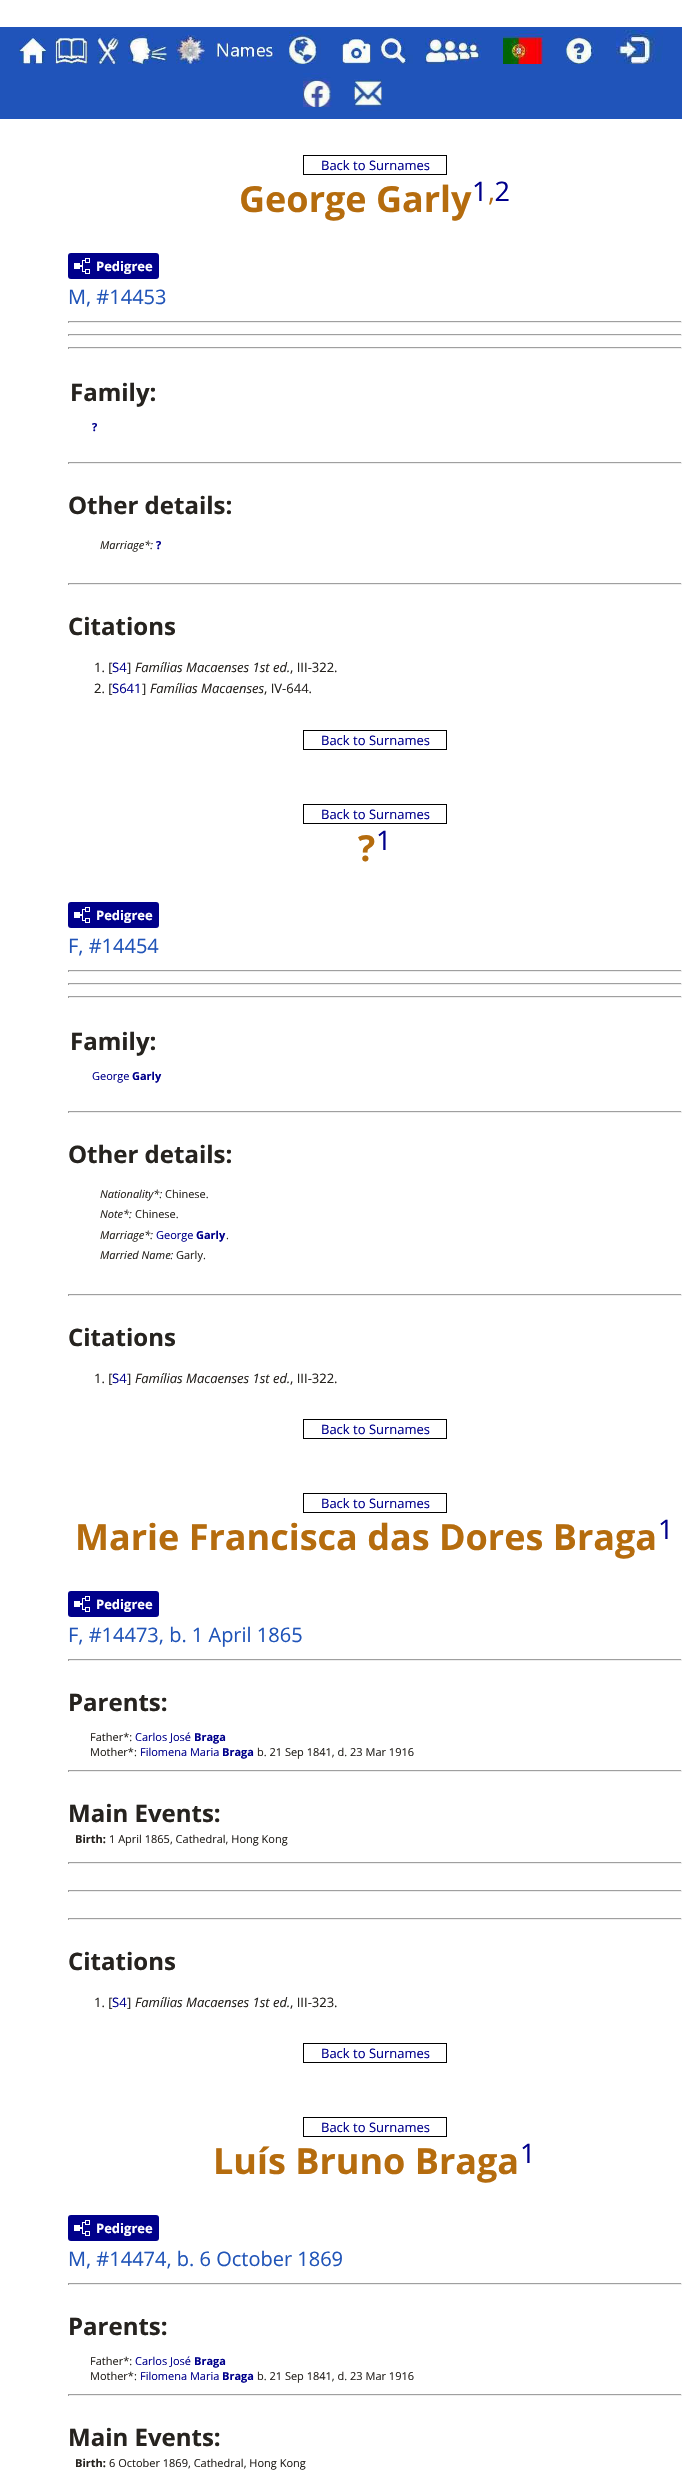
void draw(SkCanvas* canvas) {
    SkPaint paint;
    paint.setAntiAlias(true);
    canvas->clear(0xFFFFFFFF);
    paint.setColor(0xFF2054BA);
    canvas->drawRect(SkRect::MakeXYWH(0, 27, 682, 92), paint);
    canvas->drawImageRect(SkImages::DeferredFromEncodedData(SkData::MakeFromFileName("img1.png")), SkRect::MakeXYWH(19, 34, 27, 30), SkSamplingOptions());
    canvas->drawImageRect(SkImages::DeferredFromEncodedData(SkData::MakeFromFileName("img2.png")), SkRect::MakeXYWH(55, 38, 33, 26), SkSamplingOptions());
    canvas->drawImageRect(SkImages::DeferredFromEncodedData(SkData::MakeFromFileName("img3.png")), SkRect::MakeXYWH(97, 34, 22, 30), SkSamplingOptions());
    canvas->drawImageRect(SkImages::DeferredFromEncodedData(SkData::MakeFromFileName("img4.png")), SkRect::MakeXYWH(128, 30, 39, 34), SkSamplingOptions());
    canvas->drawImageRect(SkImages::DeferredFromEncodedData(SkData::MakeFromFileName("img5.png")), SkRect::MakeXYWH(176, 30, 29, 34), SkSamplingOptions());
    canvas->drawImageRect(SkImages::DeferredFromEncodedData(SkData::MakeFromFileName("img6.png")), SkRect::MakeXYWH(214, 38, 65, 24), SkSamplingOptions());
    canvas->drawImageRect(SkImages::DeferredFromEncodedData(SkData::MakeFromFileName("img7.png")), SkRect::MakeXYWH(289, 30, 32, 34), SkSamplingOptions());
    canvas->drawImageRect(SkImages::DeferredFromEncodedData(SkData::MakeFromFileName("img8.png")), SkRect::MakeXYWH(341, 38, 30, 26), SkSamplingOptions());
    canvas->drawImageRect(SkImages::DeferredFromEncodedData(SkData::MakeFromFileName("img9.png")), SkRect::MakeXYWH(380, 30, 33, 34), SkSamplingOptions());
    canvas->drawImageRect(SkImages::DeferredFromEncodedData(SkData::MakeFromFileName("img10.png")), SkRect::MakeXYWH(425, 38, 57, 26), SkSamplingOptions());
    canvas->drawImageRect(SkImages::DeferredFromEncodedData(SkData::MakeFromFileName("img11.png")), SkRect::MakeXYWH(503, 30, 41, 34), SkSamplingOptions());
    canvas->drawImageRect(SkImages::DeferredFromEncodedData(SkData::MakeFromFileName("img12.png")), SkRect::MakeXYWH(566, 30, 33, 34), SkSamplingOptions());
    canvas->drawImageRect(SkImages::DeferredFromEncodedData(SkData::MakeFromFileName("img13.png")), SkRect::MakeXYWH(616, 30, 47, 34), SkSamplingOptions());
    canvas->drawImageRect(SkImages::DeferredFromEncodedData(SkData::MakeFromFileName("img14.png")), SkRect::MakeXYWH(303, 73, 30, 34), SkSamplingOptions());
    canvas->drawImageRect(SkImages::DeferredFromEncodedData(SkData::MakeFromFileName("img15.png")), SkRect::MakeXYWH(354, 79, 28, 32), SkSamplingOptions());
    paint.setStyle(SkPaint::kStroke_Style);
    paint.setStrokeWidth(1);
    paint.setColor(0xFF000000);
    canvas->drawRect(SkRect::MakeXYWH(303.5f, 155.5f, 143, 19), paint);
    SkFont font1(fontMgr->matchFamilyStyle("Open Sans", SkFontStyle::Normal()), 13);
    font1.setSubpixel(true);
    paint.setStyle(SkPaint::kFill_Style);
    paint.setColor(0xFF00008B);
    canvas->drawString("Back to Surnames", 321, 170, font1, paint);
    SkFont font2(fontMgr->matchFamilyStyle("Open Sans", SkFontStyle::Bold()), 36);
    font2.setSubpixel(true);
    paint.setColor(0xFFB56C0E);
    canvas->drawString("George Garly", 239, 212, font2, paint);
    SkFont font3(fontMgr->matchFamilyStyle("Open Sans", SkFontStyle::Normal()), 27);
    font3.setSubpixel(true);
    paint.setColor(0xFF00008B);
    canvas->drawString("1 2", 472, 201, font3, paint);
    paint.setColor(0xFFB56C0E);
    canvas->drawString(",", 488, 201, font3, paint);
    paint.setColor(0xFF00008B);
    canvas->drawRoundRect(SkRect::MakeXYWH(68, 253, 91, 26), 3, 3, paint);
    canvas->drawImageRect(SkImages::DeferredFromEncodedData(SkData::MakeFromFileName("img16.png")), SkRect::MakeXYWH(74, 258, 16, 16), SkSamplingOptions());
    SkFont font4(fontMgr->matchFamilyStyle("Open Sans", SkFontStyle::Bold()), 13);
    font4.setSubpixel(true);
    paint.setColor(0xFFFFFFFF);
    canvas->drawString("Pedigree", 96, 271, font4, paint);
    SkFont font5(fontMgr->matchFamilyStyle("Open Sans", SkFontStyle::Normal()), 20);
    font5.setSubpixel(true);
    paint.setColor(0xFF2054B8);
    canvas->drawString("M, #14453", 68, 304, font5, paint);
    paint.setColor(0xFF9F9F9F);
    canvas->drawRect(SkRect::MakeXYWH(68, 321, 614, 1), paint);
    paint.setColor(0xFFEEEEEE);
    canvas->drawRect(SkRect::MakeXYWH(681, 321, 1, 2), paint);
    canvas->drawRect(SkRect::MakeXYWH(68, 322, 614, 1), paint);
    paint.setColor(0xFF9F9F9F);
    canvas->drawRect(SkRect::MakeXYWH(68, 321, 1, 2), paint);
    canvas->drawRect(SkRect::MakeXYWH(68, 334, 614, 1), paint);
    paint.setColor(0xFFEEEEEE);
    canvas->drawRect(SkRect::MakeXYWH(681, 334, 1, 2), paint);
    canvas->drawRect(SkRect::MakeXYWH(68, 335, 614, 1), paint);
    paint.setColor(0xFF9F9F9F);
    canvas->drawRect(SkRect::MakeXYWH(68, 334, 1, 2), paint);
    canvas->drawRect(SkRect::MakeXYWH(68, 347, 614, 1), paint);
    paint.setColor(0xFFEEEEEE);
    canvas->drawRect(SkRect::MakeXYWH(681, 347, 1, 2), paint);
    canvas->drawRect(SkRect::MakeXYWH(68, 348, 614, 1), paint);
    paint.setColor(0xFF9F9F9F);
    canvas->drawRect(SkRect::MakeXYWH(68, 347, 1, 2), paint);
    SkFont font6(fontMgr->matchFamilyStyle("Open Sans", SkFontStyle::Bold()), 24);
    font6.setSubpixel(true);
    paint.setColor(0xFF26231F);
    canvas->drawString("Family:", 70, 401, font6, paint);
    SkFont font7(fontMgr->matchFamilyStyle("Open Sans", SkFontStyle::Bold()), 11);
    font7.setSubpixel(true);
    paint.setColor(0xFF00008B);
    canvas->drawString("?", 92, 431, font7, paint);
    paint.setColor(0xFF9F9F9F);
    canvas->drawRect(SkRect::MakeXYWH(68, 462, 614, 1), paint);
    paint.setColor(0xFFEEEEEE);
    canvas->drawRect(SkRect::MakeXYWH(681, 462, 1, 2), paint);
    canvas->drawRect(SkRect::MakeXYWH(68, 463, 614, 1), paint);
    paint.setColor(0xFF9F9F9F);
    canvas->drawRect(SkRect::MakeXYWH(68, 462, 1, 2), paint);
    paint.setColor(0xFF26231F);
    canvas->drawString("Other details:", 68, 514, font6, paint);
    SkFont font8(fontMgr->matchFamilyStyle("Open Sans", SkFontStyle::Italic()), 11);
    font8.setSubpixel(true);
    canvas->drawString("Marriage*:", 100, 549, font8, paint);
    paint.setColor(0xFF00008B);
    canvas->drawString("?", 156, 549, font7, paint);
    paint.setColor(0xFF9F9F9F);
    canvas->drawRect(SkRect::MakeXYWH(68, 583, 614, 1), paint);
    paint.setColor(0xFFEEEEEE);
    canvas->drawRect(SkRect::MakeXYWH(681, 583, 1, 2), paint);
    canvas->drawRect(SkRect::MakeXYWH(68, 584, 614, 1), paint);
    paint.setColor(0xFF9F9F9F);
    canvas->drawRect(SkRect::MakeXYWH(68, 583, 1, 2), paint);
    paint.setColor(0xFF26231F);
    canvas->drawString("Citations", 68, 635, font6, paint);
    canvas->drawString("1. [", 94, 672, font1, paint);
    paint.setColor(0xFF00008B);
    canvas->drawString("S4", 112, 672, font1, paint);
    paint.setColor(0xFF26231F);
    canvas->drawString("]", 127, 672, font1, paint);
    SkFont font9(fontMgr->matchFamilyStyle("Open Sans", SkFontStyle::Italic()), 13);
    font9.setSubpixel(true);
    canvas->drawString("Famílias Macaenses 1st ed.", 135, 672, font9, paint);
    canvas->drawString(", III-322.", 290, 672, font1, paint);
    canvas->drawString("2. [", 94, 693, font1, paint);
    paint.setColor(0xFF00008B);
    canvas->drawString("S641", 112, 693, font1, paint);
    paint.setColor(0xFF26231F);
    canvas->drawString("]", 142, 693, font1, paint);
    canvas->drawString("Famílias Macaenses", 150, 693, font9, paint);
    canvas->drawString(", IV-644.", 264, 693, font1, paint);
    paint.setStyle(SkPaint::kStroke_Style);
    paint.setColor(0xFF000000);
    canvas->drawRect(SkRect::MakeXYWH(303.5f, 730.5f, 143, 19), paint);
    paint.setStyle(SkPaint::kFill_Style);
    paint.setColor(0xFF00008B);
    canvas->drawString("Back to Surnames", 321, 745, font1, paint);
    paint.setStyle(SkPaint::kStroke_Style);
    paint.setColor(0xFF000000);
    canvas->drawRect(SkRect::MakeXYWH(303.5f, 804.5f, 143, 19), paint);
    paint.setStyle(SkPaint::kFill_Style);
    paint.setColor(0xFF00008B);
    canvas->drawString("Back to Surnames", 321, 819, font1, paint);
    paint.setColor(0xFFB56C0E);
    canvas->drawString("?", 358, 861, font2, paint);
    paint.setColor(0xFF00008B);
    canvas->drawString("1", 376, 850, font3, paint);
    canvas->drawRoundRect(SkRect::MakeXYWH(68, 902, 91, 26), 3, 3, paint);
    canvas->drawImageRect(SkImages::DeferredFromEncodedData(SkData::MakeFromFileName("img16.png")), SkRect::MakeXYWH(74, 907, 16, 16), SkSamplingOptions());
    paint.setColor(0xFFFFFFFF);
    canvas->drawString("Pedigree", 96, 920, font4, paint);
    paint.setColor(0xFF2054B8);
    canvas->drawString("F, #14454", 68, 953, font5, paint);
    paint.setColor(0xFF9F9F9F);
    canvas->drawRect(SkRect::MakeXYWH(68, 970, 614, 1), paint);
    paint.setColor(0xFFEEEEEE);
    canvas->drawRect(SkRect::MakeXYWH(681, 970, 1, 2), paint);
    canvas->drawRect(SkRect::MakeXYWH(68, 971, 614, 1), paint);
    paint.setColor(0xFF9F9F9F);
    canvas->drawRect(SkRect::MakeXYWH(68, 970, 1, 2), paint);
    canvas->drawRect(SkRect::MakeXYWH(68, 983, 614, 1), paint);
    paint.setColor(0xFFEEEEEE);
    canvas->drawRect(SkRect::MakeXYWH(681, 983, 1, 2), paint);
    canvas->drawRect(SkRect::MakeXYWH(68, 984, 614, 1), paint);
    paint.setColor(0xFF9F9F9F);
    canvas->drawRect(SkRect::MakeXYWH(68, 983, 1, 2), paint);
    canvas->drawRect(SkRect::MakeXYWH(68, 996, 614, 1), paint);
    paint.setColor(0xFFEEEEEE);
    canvas->drawRect(SkRect::MakeXYWH(681, 996, 1, 2), paint);
    canvas->drawRect(SkRect::MakeXYWH(68, 997, 614, 1), paint);
    paint.setColor(0xFF9F9F9F);
    canvas->drawRect(SkRect::MakeXYWH(68, 996, 1, 2), paint);
    paint.setColor(0xFF26231F);
    canvas->drawString("Family:", 70, 1050, font6, paint);
    SkFont font10(fontMgr->matchFamilyStyle("Open Sans", SkFontStyle::Normal()), 11);
    font10.setSubpixel(true);
    paint.setColor(0xFF00008B);
    canvas->drawString("George", 92, 1080, font10, paint);
    canvas->drawString("Garly", 132, 1080, font7, paint);
    paint.setColor(0xFF9F9F9F);
    canvas->drawRect(SkRect::MakeXYWH(68, 1111, 614, 1), paint);
    paint.setColor(0xFFEEEEEE);
    canvas->drawRect(SkRect::MakeXYWH(681, 1111, 1, 2), paint);
    canvas->drawRect(SkRect::MakeXYWH(68, 1112, 614, 1), paint);
    paint.setColor(0xFF9F9F9F);
    canvas->drawRect(SkRect::MakeXYWH(68, 1111, 1, 2), paint);
    paint.setColor(0xFF26231F);
    canvas->drawString("Other details:", 68, 1163, font6, paint);
    canvas->drawString("Nationality*:", 100, 1198, font8, paint);
    canvas->drawString("Chinese.", 165, 1198, font10, paint);
    canvas->drawString("Note*:", 100, 1218, font8, paint);
    canvas->drawString("Chinese.", 135, 1218, font10, paint);
    canvas->drawString("Marriage*:", 100, 1239, font8, paint);
    paint.setColor(0xFF00008B);
    canvas->drawString("George", 156, 1239, font10, paint);
    canvas->drawString("Garly", 196, 1239, font7, paint);
    paint.setColor(0xFF26231F);
    canvas->drawString(".", 226, 1239, font10, paint);
    canvas->drawString("Married Name:", 100, 1259, font8, paint);
    canvas->drawString("Garly.", 176, 1259, font10, paint);
    paint.setColor(0xFF9F9F9F);
    canvas->drawRect(SkRect::MakeXYWH(68, 1294, 614, 1), paint);
    paint.setColor(0xFFEEEEEE);
    canvas->drawRect(SkRect::MakeXYWH(681, 1294, 1, 2), paint);
    canvas->drawRect(SkRect::MakeXYWH(68, 1295, 614, 1), paint);
    paint.setColor(0xFF9F9F9F);
    canvas->drawRect(SkRect::MakeXYWH(68, 1294, 1, 2), paint);
    paint.setColor(0xFF26231F);
    canvas->drawString("Citations", 68, 1346, font6, paint);
    canvas->drawString("1. [", 94, 1383, font1, paint);
    paint.setColor(0xFF00008B);
    canvas->drawString("S4", 112, 1383, font1, paint);
    paint.setColor(0xFF26231F);
    canvas->drawString("]", 127, 1383, font1, paint);
    canvas->drawString("Famílias Macaenses 1st ed.", 135, 1383, font9, paint);
    canvas->drawString(", III-322.", 290, 1383, font1, paint);
    paint.setStyle(SkPaint::kStroke_Style);
    paint.setColor(0xFF000000);
    canvas->drawRect(SkRect::MakeXYWH(303.5f, 1419.5f, 143, 19), paint);
    paint.setStyle(SkPaint::kFill_Style);
    paint.setColor(0xFF00008B);
    canvas->drawString("Back to Surnames", 321, 1434, font1, paint);
    paint.setStyle(SkPaint::kStroke_Style);
    paint.setColor(0xFF000000);
    canvas->drawRect(SkRect::MakeXYWH(303.5f, 1493.5f, 143, 19), paint);
    paint.setStyle(SkPaint::kFill_Style);
    paint.setColor(0xFF00008B);
    canvas->drawString("Back to Surnames", 321, 1508, font1, paint);
    paint.setColor(0xFFB56C0E);
    canvas->drawString("Marie Francisca das Dores Braga", 75, 1550, font2, paint);
    paint.setColor(0xFF00008B);
    canvas->drawString("1", 658, 1539, font3, paint);
    canvas->drawRoundRect(SkRect::MakeXYWH(68, 1591, 91, 26), 3, 3, paint);
    canvas->drawImageRect(SkImages::DeferredFromEncodedData(SkData::MakeFromFileName("img16.png")), SkRect::MakeXYWH(74, 1596, 16, 16), SkSamplingOptions());
    paint.setColor(0xFFFFFFFF);
    canvas->drawString("Pedigree", 96, 1609, font4, paint);
    paint.setColor(0xFF2054B8);
    canvas->drawString("F, #14473, b. 1 April 1865", 68, 1642, font5, paint);
    paint.setColor(0xFF9F9F9F);
    canvas->drawRect(SkRect::MakeXYWH(68, 1659, 614, 1), paint);
    paint.setColor(0xFFEEEEEE);
    canvas->drawRect(SkRect::MakeXYWH(681, 1659, 1, 2), paint);
    canvas->drawRect(SkRect::MakeXYWH(68, 1660, 614, 1), paint);
    paint.setColor(0xFF9F9F9F);
    canvas->drawRect(SkRect::MakeXYWH(68, 1659, 1, 2), paint);
    paint.setColor(0xFF26231F);
    canvas->drawString("Parents:", 68, 1711, font6, paint);
    canvas->drawString("Father*:", 90, 1741, font10, paint);
    paint.setColor(0xFF00008B);
    canvas->drawString("Carlos José", 135, 1741, font10, paint);
    canvas->drawString("Braga", 194, 1741, font7, paint);
    paint.setColor(0xFF26231F);
    canvas->drawString("Mother*:", 90, 1756, font10, paint);
    paint.setColor(0xFF00008B);
    canvas->drawString("Filomena Maria", 140, 1756, font10, paint);
    canvas->drawString("Braga", 222, 1756, font7, paint);
    paint.setColor(0xFF26231F);
    canvas->drawString("b. 21 Sep 1841, d. 23 Mar 1916", 257, 1756, font10, paint);
    paint.setColor(0xFF9F9F9F);
    canvas->drawRect(SkRect::MakeXYWH(68, 1770, 614, 1), paint);
    paint.setColor(0xFFEEEEEE);
    canvas->drawRect(SkRect::MakeXYWH(681, 1770, 1, 2), paint);
    canvas->drawRect(SkRect::MakeXYWH(68, 1771, 614, 1), paint);
    paint.setColor(0xFF9F9F9F);
    canvas->drawRect(SkRect::MakeXYWH(68, 1770, 1, 2), paint);
    paint.setColor(0xFF26231F);
    canvas->drawString("Main Events:", 68, 1822, font6, paint);
    canvas->drawString("Birth:", 75, 1843, font7, paint);
    canvas->drawString("1 April 1865, Cathedral, Hong Kong", 109, 1843, font10, paint);
    paint.setColor(0xFF9F9F9F);
    canvas->drawRect(SkRect::MakeXYWH(68, 1862, 614, 1), paint);
    paint.setColor(0xFFEEEEEE);
    canvas->drawRect(SkRect::MakeXYWH(681, 1862, 1, 2), paint);
    canvas->drawRect(SkRect::MakeXYWH(68, 1863, 614, 1), paint);
    paint.setColor(0xFF9F9F9F);
    canvas->drawRect(SkRect::MakeXYWH(68, 1862, 1, 2), paint);
    canvas->drawRect(SkRect::MakeXYWH(68, 1890, 614, 1), paint);
    paint.setColor(0xFFEEEEEE);
    canvas->drawRect(SkRect::MakeXYWH(681, 1890, 1, 2), paint);
    canvas->drawRect(SkRect::MakeXYWH(68, 1891, 614, 1), paint);
    paint.setColor(0xFF9F9F9F);
    canvas->drawRect(SkRect::MakeXYWH(68, 1890, 1, 2), paint);
    canvas->drawRect(SkRect::MakeXYWH(68, 1918, 614, 1), paint);
    paint.setColor(0xFFEEEEEE);
    canvas->drawRect(SkRect::MakeXYWH(681, 1918, 1, 2), paint);
    canvas->drawRect(SkRect::MakeXYWH(68, 1919, 614, 1), paint);
    paint.setColor(0xFF9F9F9F);
    canvas->drawRect(SkRect::MakeXYWH(68, 1918, 1, 2), paint);
    paint.setColor(0xFF26231F);
    canvas->drawString("Citations", 68, 1970, font6, paint);
    canvas->drawString("1. [", 94, 2007, font1, paint);
    paint.setColor(0xFF00008B);
    canvas->drawString("S4", 112, 2007, font1, paint);
    paint.setColor(0xFF26231F);
    canvas->drawString("]", 127, 2007, font1, paint);
    canvas->drawString("Famílias Macaenses 1st ed.", 135, 2007, font9, paint);
    canvas->drawString(", III-323.", 290, 2007, font1, paint);
    paint.setStyle(SkPaint::kStroke_Style);
    paint.setColor(0xFF000000);
    canvas->drawRect(SkRect::MakeXYWH(303.5f, 2043.5f, 143, 19), paint);
    paint.setStyle(SkPaint::kFill_Style);
    paint.setColor(0xFF00008B);
    canvas->drawString("Back to Surnames", 321, 2058, font1, paint);
    paint.setStyle(SkPaint::kStroke_Style);
    paint.setColor(0xFF000000);
    canvas->drawRect(SkRect::MakeXYWH(303.5f, 2117.5f, 143, 19), paint);
    paint.setStyle(SkPaint::kFill_Style);
    paint.setColor(0xFF00008B);
    canvas->drawString("Back to Surnames", 321, 2132, font1, paint);
    paint.setColor(0xFFB56C0E);
    canvas->drawString("Luís Bruno Braga", 213, 2174, font2, paint);
    paint.setColor(0xFF00008B);
    canvas->drawString("1", 520, 2163, font3, paint);
    canvas->drawRoundRect(SkRect::MakeXYWH(68, 2215, 91, 26), 3, 3, paint);
    canvas->drawImageRect(SkImages::DeferredFromEncodedData(SkData::MakeFromFileName("img16.png")), SkRect::MakeXYWH(74, 2220, 16, 16), SkSamplingOptions());
    paint.setColor(0xFFFFFFFF);
    canvas->drawString("Pedigree", 96, 2233, font4, paint);
    paint.setColor(0xFF2054B8);
    canvas->drawString("M, #14474, b. 6 October 1869", 68, 2266, font5, paint);
    paint.setColor(0xFF9F9F9F);
    canvas->drawRect(SkRect::MakeXYWH(68, 2283, 614, 1), paint);
    paint.setColor(0xFFEEEEEE);
    canvas->drawRect(SkRect::MakeXYWH(681, 2283, 1, 2), paint);
    canvas->drawRect(SkRect::MakeXYWH(68, 2284, 614, 1), paint);
    paint.setColor(0xFF9F9F9F);
    canvas->drawRect(SkRect::MakeXYWH(68, 2283, 1, 2), paint);
    paint.setColor(0xFF26231F);
    canvas->drawString("Parents:", 68, 2335, font6, paint);
    canvas->drawString("Father*:", 90, 2365, font10, paint);
    paint.setColor(0xFF00008B);
    canvas->drawString("Carlos José", 135, 2365, font10, paint);
    canvas->drawString("Braga", 194, 2365, font7, paint);
    paint.setColor(0xFF26231F);
    canvas->drawString("Mother*:", 90, 2380, font10, paint);
    paint.setColor(0xFF00008B);
    canvas->drawString("Filomena Maria", 140, 2380, font10, paint);
    canvas->drawString("Braga", 222, 2380, font7, paint);
    paint.setColor(0xFF26231F);
    canvas->drawString("b. 21 Sep 1841, d. 23 Mar 1916", 257, 2380, font10, paint);
    paint.setColor(0xFF9F9F9F);
    canvas->drawRect(SkRect::MakeXYWH(68, 2394, 614, 1), paint);
    paint.setColor(0xFFEEEEEE);
    canvas->drawRect(SkRect::MakeXYWH(681, 2394, 1, 2), paint);
    canvas->drawRect(SkRect::MakeXYWH(68, 2395, 614, 1), paint);
    paint.setColor(0xFF9F9F9F);
    canvas->drawRect(SkRect::MakeXYWH(68, 2394, 1, 2), paint);
    paint.setColor(0xFF26231F);
    canvas->drawString("Main Events:", 68, 2446, font6, paint);
    canvas->drawString("Birth:", 75, 2467, font7, paint);
    canvas->drawString("6 October 1869, Cathedral, Hong Kong", 109, 2467, font10, paint);
}
